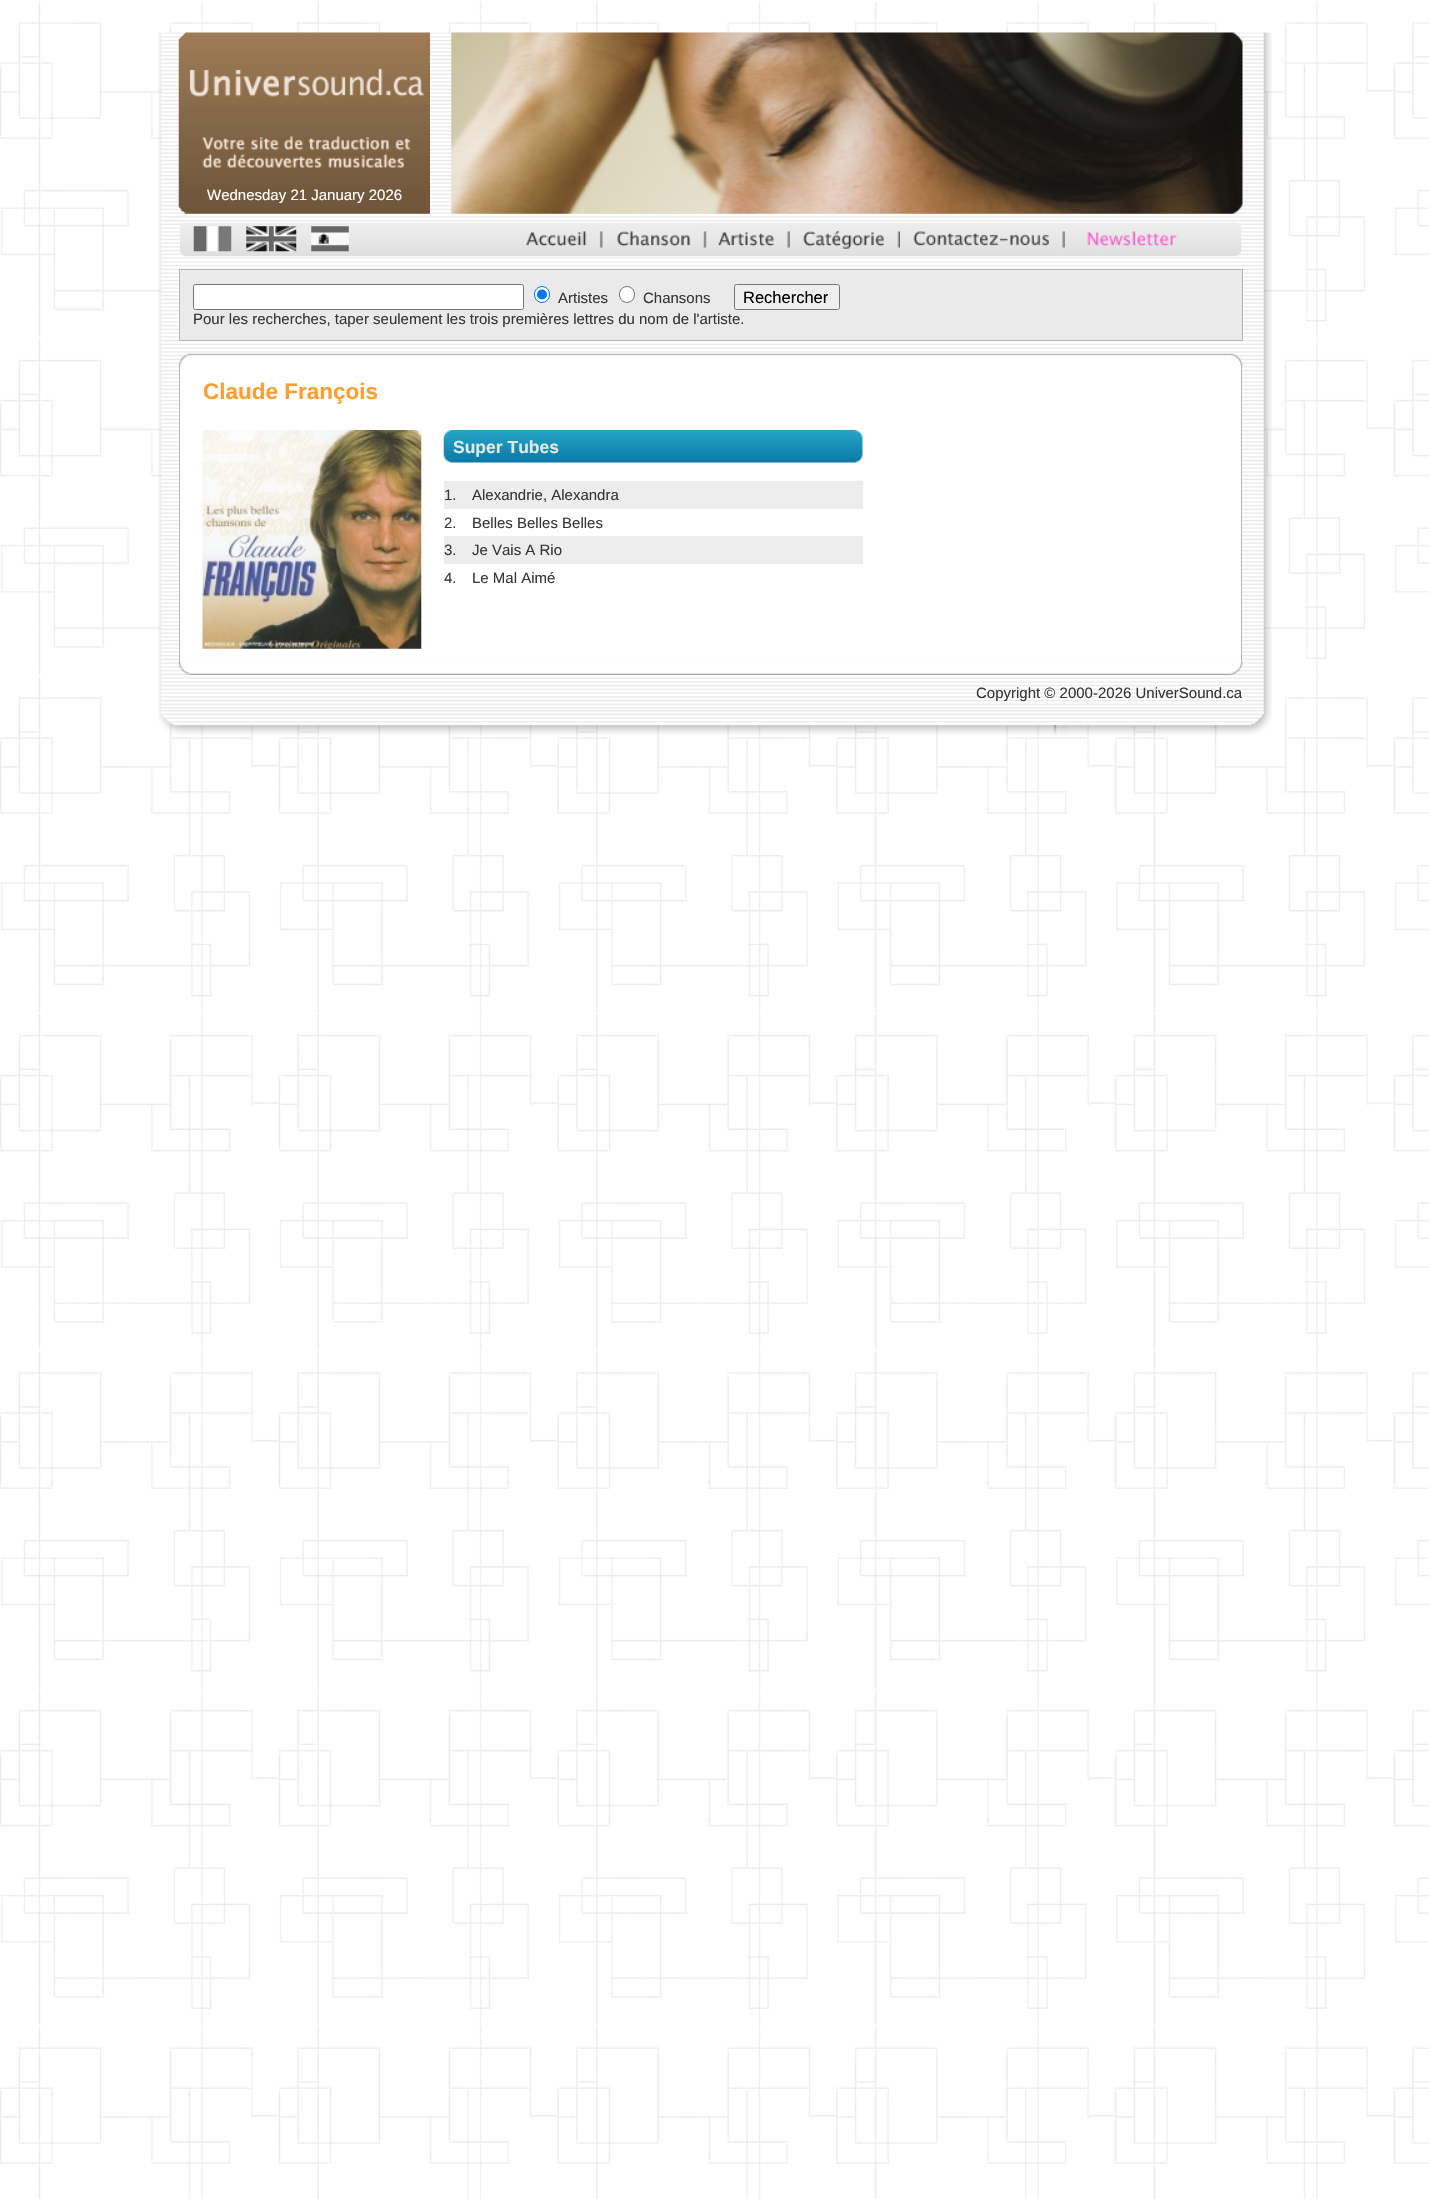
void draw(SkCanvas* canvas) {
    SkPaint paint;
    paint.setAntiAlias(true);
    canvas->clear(0xFFFFFFFF);
    canvas->drawImageRect(SkImages::DeferredFromEncodedData(SkData::MakeFromFileName("img1.png")), SkRect::MakeXYWH(0, 1, 1429, 2198), SkSamplingOptions());
    canvas->drawImageRect(SkImages::DeferredFromEncodedData(SkData::MakeFromFileName("img2.png")), SkRect::MakeXYWH(158, 32, 1114, 678), SkSamplingOptions());
    canvas->drawImageRect(SkImages::DeferredFromEncodedData(SkData::MakeFromFileName("img3.png")), SkRect::MakeXYWH(178, 32, 252, 182), SkSamplingOptions());
    canvas->drawImageRect(SkImages::DeferredFromEncodedData(SkData::MakeFromFileName("img4.png")), SkRect::MakeXYWH(451, 32, 792, 182), SkSamplingOptions());
    SkFont font1(fontMgr->matchFamilyStyle("Liberation Sans", SkFontStyle::Normal()), 15);
    font1.setSubpixel(true);
    paint.setColor(0xFFFFFFFF);
    canvas->drawString("Wednesday 21 January 2026", 207, 200, font1, paint);
    canvas->drawImageRect(SkImages::DeferredFromEncodedData(SkData::MakeFromFileName("img5.png")), SkRect::MakeXYWH(180, 222, 1062, 35), SkSamplingOptions());
    canvas->drawImageRect(SkImages::DeferredFromEncodedData(SkData::MakeFromFileName("img6.png")), SkRect::MakeXYWH(193, 226, 39, 26), SkSamplingOptions());
    canvas->drawImageRect(SkImages::DeferredFromEncodedData(SkData::MakeFromFileName("img7.png")), SkRect::MakeXYWH(246, 226, 51, 26), SkSamplingOptions());
    canvas->drawImageRect(SkImages::DeferredFromEncodedData(SkData::MakeFromFileName("img8.png")), SkRect::MakeXYWH(311, 226, 38, 26), SkSamplingOptions());
    canvas->drawImageRect(SkImages::DeferredFromEncodedData(SkData::MakeFromFileName("img9.png")), SkRect::MakeXYWH(526, 231, 77, 17), SkSamplingOptions());
    canvas->drawImageRect(SkImages::DeferredFromEncodedData(SkData::MakeFromFileName("img10.png")), SkRect::MakeXYWH(617, 231, 90, 17), SkSamplingOptions());
    canvas->drawImageRect(SkImages::DeferredFromEncodedData(SkData::MakeFromFileName("img11.png")), SkRect::MakeXYWH(718, 231, 72, 17), SkSamplingOptions());
    canvas->drawImageRect(SkImages::DeferredFromEncodedData(SkData::MakeFromFileName("img12.png")), SkRect::MakeXYWH(803, 231, 97, 18), SkSamplingOptions());
    canvas->drawImageRect(SkImages::DeferredFromEncodedData(SkData::MakeFromFileName("img13.png")), SkRect::MakeXYWH(913, 231, 152, 17), SkSamplingOptions());
    canvas->drawImageRect(SkImages::DeferredFromEncodedData(SkData::MakeFromFileName("img14.png")), SkRect::MakeXYWH(1087, 231, 90, 16), SkSamplingOptions());
    paint.setColor(0xFFEAEAEA);
    canvas->drawRect(SkRect::MakeXYWH(179.5f, 269.5f, 1063, 71), paint);
    paint.setStyle(SkPaint::kStroke_Style);
    paint.setStrokeWidth(1);
    paint.setColor(0xFFB4B7BA);
    canvas->drawRect(SkRect::MakeXYWH(179.5f, 269.5f, 1063, 71), paint);
    paint.setStyle(SkPaint::kFill_Style);
    paint.setColor(0xFFFFFFFF);
    canvas->drawRoundRect(SkRect::MakeXYWH(193.5f, 284.5f, 330, 25), 2, 2, paint);
    paint.setStyle(SkPaint::kStroke_Style);
    paint.setColor(0xFF767676);
    canvas->drawRoundRect(SkRect::MakeXYWH(193.5f, 284.5f, 330, 25), 2, 2, paint);
    paint.setStyle(SkPaint::kFill_Style);
    paint.setColor(0xFFFFFFFF);
    canvas->drawRoundRect(SkRect::MakeXYWH(534.5f, 286.5f, 15, 16), 7.5f, 7.5f, paint);
    paint.setStyle(SkPaint::kStroke_Style);
    paint.setColor(0xFF0075FF);
    canvas->drawRoundRect(SkRect::MakeXYWH(534.5f, 286.5f, 15, 16), 7.5f, 7.5f, paint);
    paint.setStyle(SkPaint::kFill_Style);
    canvas->drawCircle(542, 294.5f, 5, paint);
    paint.setColor(0xFF363636);
    canvas->drawString("Artistes", 558, 303, font1, paint);
    paint.setColor(0xFFFFFFFF);
    canvas->drawRoundRect(SkRect::MakeXYWH(619.5f, 286.5f, 15, 16), 7.5f, 7.5f, paint);
    paint.setStyle(SkPaint::kStroke_Style);
    paint.setColor(0xFF767676);
    canvas->drawRoundRect(SkRect::MakeXYWH(619.5f, 286.5f, 15, 16), 7.5f, 7.5f, paint);
    paint.setStyle(SkPaint::kFill_Style);
    paint.setColor(0xFF363636);
    canvas->drawString("Chansons", 643, 303, font1, paint);
    paint.setColor(0xFFEFEFEF);
    canvas->drawRoundRect(SkRect::MakeXYWH(734.5f, 284.5f, 105, 25), 2, 2, paint);
    paint.setStyle(SkPaint::kStroke_Style);
    paint.setColor(0xFF767676);
    canvas->drawRoundRect(SkRect::MakeXYWH(734.5f, 284.5f, 105, 25), 2, 2, paint);
    SkFont font2(fontMgr->matchFamilyStyle("Liberation Sans", SkFontStyle::Normal()), 16.5f);
    font2.setSubpixel(true);
    paint.setStyle(SkPaint::kFill_Style);
    paint.setColor(0xFF000000);
    canvas->drawString("Rechercher", 743, 303, font2, paint);
    paint.setColor(0xFF363636);
    canvas->drawString("Pour les recherches, taper seulement les trois premières lettres du nom de l'artiste.", 193, 324, font1, paint);
    canvas->drawImageRect(SkImages::DeferredFromEncodedData(SkData::MakeFromFileName("img15.png")), SkRect::MakeXYWH(178, 353, 1065, 14), SkSamplingOptions());
    paint.setColor(0xFFFFFFFF);
    canvas->drawRect(SkRect::MakeXYWH(180, 366, 1061, 294), paint);
    paint.setColor(0xFFB4B7BA);
    canvas->drawRect(SkRect::MakeXYWH(1241, 366, 1, 295), paint);
    canvas->drawRect(SkRect::MakeXYWH(179, 366, 1, 295), paint);
    SkFont font3(fontMgr->matchFamilyStyle("Liberation Sans", SkFontStyle::Bold()), 22.5f);
    font3.setSubpixel(true);
    paint.setColor(0xFFFF9D2F);
    canvas->drawString("Claude François", 203, 399, font3, paint);
    canvas->drawImageRect(SkImages::DeferredFromEncodedData(SkData::MakeFromFileName("img16.png")), SkRect::MakeXYWH(202, 430, 220, 219), SkSamplingOptions());
    canvas->drawImageRect(SkImages::DeferredFromEncodedData(SkData::MakeFromFileName("img17.png")), SkRect::MakeXYWH(443, 430, 420, 33), SkSamplingOptions());
    SkFont font4(fontMgr->matchFamilyStyle("Liberation Sans", SkFontStyle::Bold()), 17.5f);
    font4.setSubpixel(true);
    paint.setColor(0xFFDFEAE4);
    canvas->drawString("Super Tubes", 453, 453, font4, paint);
    paint.setColor(0xFFEDEDED);
    canvas->drawRect(SkRect::MakeXYWH(444, 481, 419, 28), paint);
    paint.setColor(0xFF363636);
    canvas->drawString("1.", 444, 500, font1, paint);
    canvas->drawString("Alexandrie, Alexandra", 472, 500, font1, paint);
    canvas->drawString("2.", 444, 528, font1, paint);
    canvas->drawString("Belles Belles Belles", 472, 528, font1, paint);
    paint.setColor(0xFFEDEDED);
    canvas->drawRect(SkRect::MakeXYWH(444, 536, 419, 28), paint);
    paint.setColor(0xFF363636);
    canvas->drawString("3.", 444, 555, font1, paint);
    canvas->drawString("Je Vais A Rio", 472, 555, font1, paint);
    canvas->drawString("4.", 444, 583, font1, paint);
    canvas->drawString("Le Mal Aimé", 472, 583, font1, paint);
    canvas->drawImageRect(SkImages::DeferredFromEncodedData(SkData::MakeFromFileName("img18.png")), SkRect::MakeXYWH(178, 661, 1065, 14), SkSamplingOptions());
    canvas->drawString("Copyright © 2000-2026 UniverSound.ca", 976, 698, font1, paint);
    canvas->drawImageRect(SkImages::DeferredFromEncodedData(SkData::MakeFromFileName("img19.png")), SkRect::MakeXYWH(158, 710, 1114, 26), SkSamplingOptions());
}
